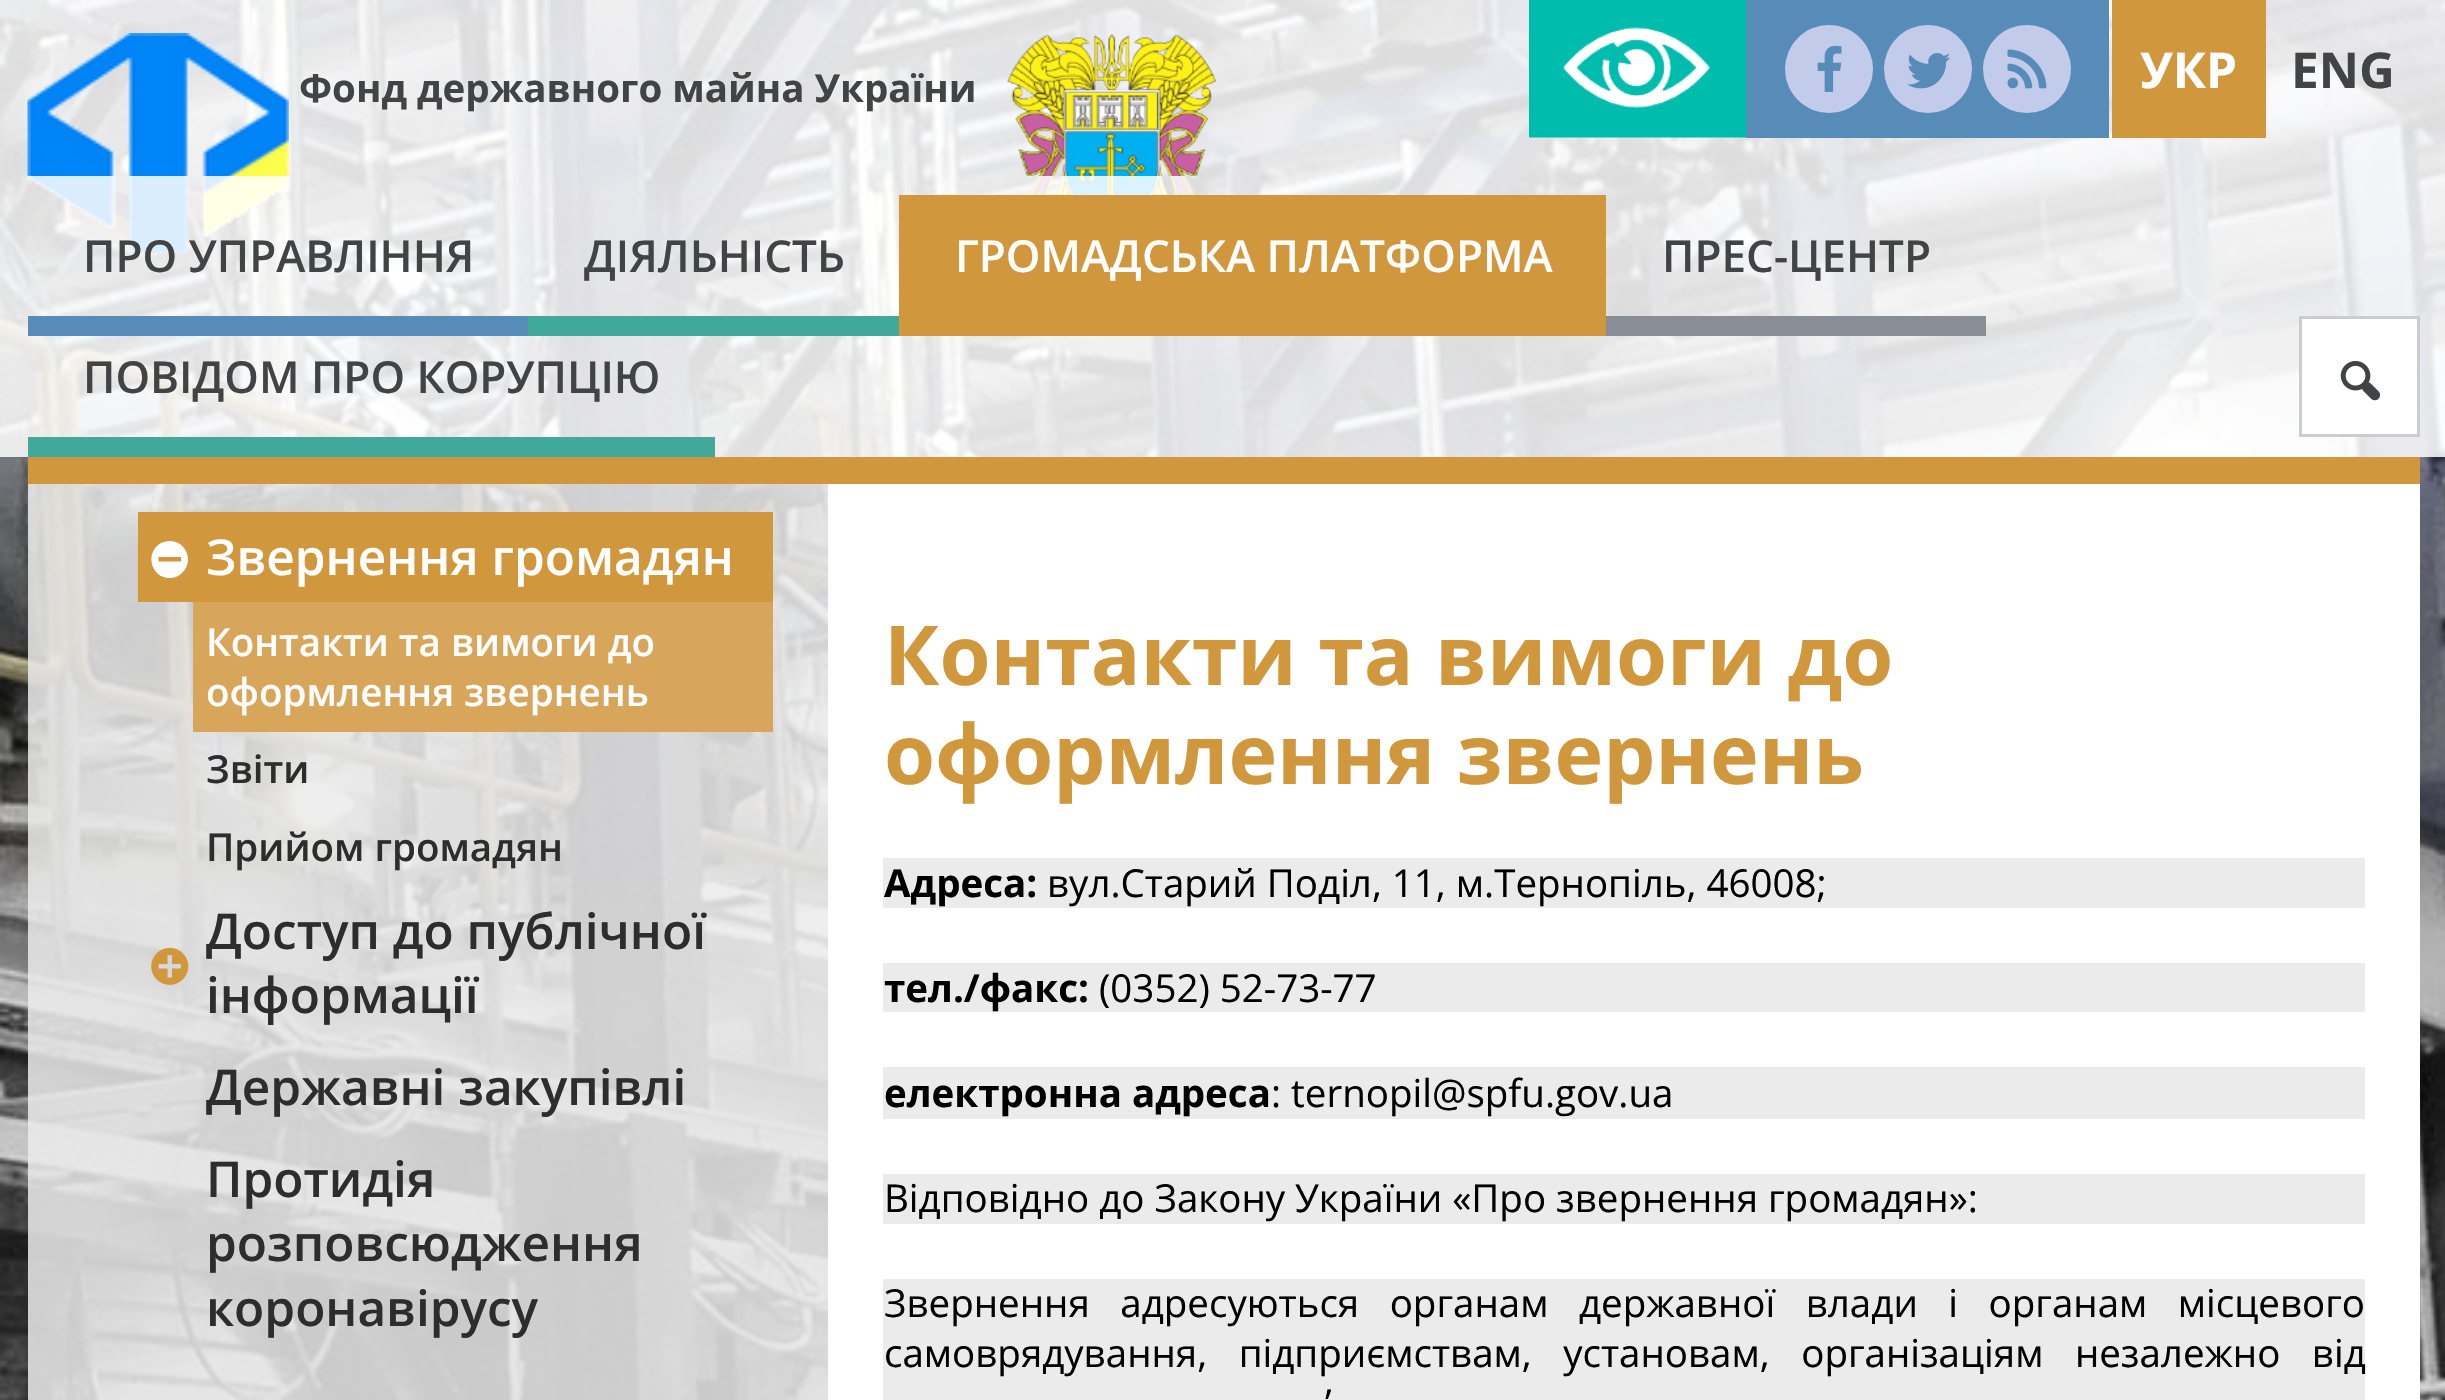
void draw(SkCanvas* canvas) {
    SkPaint paint;
    paint.setAntiAlias(true);
    auto spacedText = [&](const char* s, float x, float y, const SkFont& font, const SkPaint& ink, float letter, float word) {
        std::vector<SkGlyphID> glyphs(font.countText(s, strlen(s), SkTextEncoding::kUTF8));
        std::vector<float> xs(glyphs.size());
        font.textToGlyphs(s, strlen(s), SkTextEncoding::kUTF8, glyphs);
        font.getXPos(glyphs, xs, x);
        float extra = 0;
        for (size_t i = 0; i < glyphs.size(); i++) {
            xs[i] += extra;
            extra += letter + word * (glyphs[i] == font.unicharToGlyph(' '));
        }
        canvas->drawTextBlob(SkTextBlob::MakeFromPosHGlyphs(glyphs, xs, y, font), 0, 0, ink);
    };
    canvas->clear(0xFFFFFFFF);
    canvas->drawImageRect(SkImages::DeferredFromEncodedData(SkData::MakeFromFileName("img1.png")), SkRect::MakeXYWH(0, 0, 2445, 1400), SkSamplingOptions());
    paint.setColor(0xD9FFFFFF);
    canvas->drawRect(SkRect::MakeXYWH(0, 0, 2445, 176), paint);
    canvas->drawImageRect(SkImages::DeferredFromEncodedData(SkData::MakeFromFileName("img2.png")), SkRect::MakeXYWH(27, 33, 262, 220), SkSamplingOptions());
    SkFont font1(fontMgr->matchFamilyStyle("Open Sans", SkFontStyle::Bold()), 38.5f);
    font1.setSubpixel(true);
    paint.setColor(0xFF424344);
    canvas->drawString("Фонд державного майна України", 299, 102, font1, paint);
    canvas->drawImageRect(SkImages::DeferredFromEncodedData(SkData::MakeFromFileName("img3.png")), SkRect::MakeXYWH(1007, 34, 209, 161), SkSamplingOptions());
    paint.setColor(0xFF578CB8);
    canvas->drawRect(SkRect::MakeXYWH(1746, 0, 363, 138), paint);
    canvas->drawImageRect(SkImages::DeferredFromEncodedData(SkData::MakeFromFileName("img4.png")), SkRect::MakeXYWH(1529, 0, 218, 138), SkSamplingOptions());
    paint.setColor(0xFFC3CBEB);
    canvas->drawCircle(1829, 69, 44, paint);
    canvas->drawImageRect(SkImages::DeferredFromEncodedData(SkData::MakeFromFileName("img5.png")), SkRect::MakeXYWH(1817, 45, 25, 47), SkSamplingOptions());
    canvas->drawCircle(1928, 69, 44, paint);
    canvas->drawImageRect(SkImages::DeferredFromEncodedData(SkData::MakeFromFileName("img6.png")), SkRect::MakeXYWH(1907, 53, 44, 36), SkSamplingOptions());
    canvas->drawCircle(2027, 69, 44, paint);
    canvas->drawImageRect(SkImages::DeferredFromEncodedData(SkData::MakeFromFileName("img7.png")), SkRect::MakeXYWH(2007, 49, 40, 40), SkSamplingOptions());
    paint.setColor(0xFFD0973D);
    canvas->drawRect(SkRect::MakeXYWH(2112, 0, 154, 138), paint);
    SkFont font2(fontMgr->matchFamilyStyle("Open Sans", SkFontStyle::Bold()), 49.5f);
    font2.setSubpixel(true);
    paint.setColor(0xFFFFFFFF);
    canvas->drawString("УКР", 2140, 88, font2, paint);
    paint.setColor(0xFF424344);
    canvas->drawString("ENG", 2291, 88, font2, paint);
    paint.setColor(0xD9FFFFFF);
    canvas->drawRect(SkRect::MakeXYWH(0, 176, 2445, 281), paint);
    SkFont font3(fontMgr->matchFamilyStyle("Open Sans", SkFontStyle(600, SkFontStyle::kNormal_Width, SkFontStyle::kUpright_Slant)), 44);
    font3.setSubpixel(true);
    paint.setColor(0xFF424344);
    canvas->drawString("ПРО УПРАВЛІННЯ", 83, 272, font3, paint);
    paint.setColor(0xFF578CB8);
    canvas->drawRect(SkRect::MakeXYWH(28, 316, 500, 20), paint);
    paint.setColor(0xFF424344);
    canvas->drawString("ДІЯЛЬНІСТЬ", 584, 272, font3, paint);
    paint.setColor(0xFF40A99B);
    canvas->drawRect(SkRect::MakeXYWH(528, 316, 371, 20), paint);
    paint.setColor(0xFFD0973D);
    canvas->drawRect(SkRect::MakeXYWH(899, 195, 707, 141), paint);
    paint.setColor(0xFFFFFFFF);
    canvas->drawString("ГРОМАДСЬКА ПЛАТФОРМА", 955, 272, font3, paint);
    paint.setColor(0xFF424344);
    canvas->drawString("ПРЕС-ЦЕНТР", 1662, 272, font3, paint);
    paint.setColor(0xFF898D96);
    canvas->drawRect(SkRect::MakeXYWH(1606, 316, 380, 20), paint);
    paint.setColor(0xFF424344);
    canvas->drawString("ПОВІДОМ ПРО КОРУПЦІЮ", 83, 393, font3, paint);
    paint.setColor(0xFF40A99B);
    canvas->drawRect(SkRect::MakeXYWH(28, 437, 687, 20), paint);
    paint.setColor(0xFFFFFFFF);
    canvas->drawRect(SkRect::MakeXYWH(2300.5f, 317.5f, 118, 118), paint);
    paint.setStyle(SkPaint::kStroke_Style);
    paint.setStrokeWidth(3);
    paint.setColor(0xFFCCCCCC);
    canvas->drawRect(SkRect::MakeXYWH(2300.5f, 317.5f, 118, 118), paint);
    canvas->drawImageRect(SkImages::DeferredFromEncodedData(SkData::MakeFromFileName("img8.png")), SkRect::MakeXYWH(2340, 360, 41, 41), SkSamplingOptions());
    paint.setStyle(SkPaint::kFill_Style);
    paint.setColor(0xD9EBEBEB);
    canvas->drawRect(SkRect::MakeXYWH(28, 484, 800, 916), paint);
    paint.setColor(0xFFD0973D);
    canvas->drawRect(SkRect::MakeXYWH(28, 457, 2392, 27), paint);
    canvas->drawRect(SkRect::MakeXYWH(138, 512, 635, 90), paint);
    paint.setColor(0xFFFFFFFF);
    canvas->drawPath(SkPathBuilder().moveTo(169.5f, 541).cubicTo(187, 541, 194.5f, 562.5f, 181.5f, 573.5f).cubicTo(178, 576.5f, 174, 578, 169.5f, 578).cubicTo(152.5f, 578, 145, 556, 158, 545).cubicTo(161.5f, 542.5f, 165.5f, 541, 169.5f, 541).close().moveTo(181, 557).lineTo(158.5f, 557).lineTo(158.5f, 561.5f).lineTo(181, 561.5f).close().detach(), paint);
    SkFont font4(fontMgr->matchFamilyStyle("Open Sans", SkFontStyle(600, SkFontStyle::kNormal_Width, SkFontStyle::kUpright_Slant)), 49.5f);
    font4.setSubpixel(true);
    canvas->drawString("Звернення громадян", 206, 575, font4, paint);
    paint.setColor(0xFFD7A65A);
    canvas->drawRect(SkRect::MakeXYWH(193, 602, 580, 130), paint);
    SkFont font5(fontMgr->matchFamilyStyle("Open Sans", SkFontStyle(600, SkFontStyle::kNormal_Width, SkFontStyle::kUpright_Slant)), 38.5f);
    font5.setSubpixel(true);
    paint.setColor(0xFFFFFFFF);
    canvas->drawString("Контакти та вимоги до", 206, 656, font5, paint);
    canvas->drawString("оформлення звернень", 206, 706, font5, paint);
    paint.setColor(0xFF2D2D2D);
    canvas->drawString("Звіти", 206, 783, font5, paint);
    canvas->drawString("Прийом громадян", 206, 861, font5, paint);
    canvas->drawString("Доступ до публічної", 206, 949, font4, paint);
    canvas->drawImageRect(SkImages::DeferredFromEncodedData(SkData::MakeFromFileName("img9.png")), SkRect::MakeXYWH(151, 947, 38, 38), SkSamplingOptions());
    canvas->drawString("інформації", 206, 1013, font4, paint);
    canvas->drawString("Державні закупівлі", 206, 1105, font4, paint);
    canvas->drawString("Протидія", 206, 1197, font4, paint);
    canvas->drawString("розповсюдження", 206, 1261, font4, paint);
    canvas->drawString("коронавірусу", 206, 1326, font4, paint);
    paint.setColor(0xFFFFFFFF);
    canvas->drawRect(SkRect::MakeXYWH(828, 484, 1592, 916), paint);
    SkFont font6(fontMgr->matchFamilyStyle("Open Sans", SkFontStyle::Bold()), 82.5f);
    font6.setSubpixel(true);
    paint.setColor(0xFFD0973D);
    canvas->drawString("Контакти та вимоги до", 884, 685, font6, paint);
    canvas->drawString("оформлення звернень", 884, 784, font6, paint);
    paint.setColor(0xFFEBEBEB);
    canvas->drawRect(SkRect::MakeXYWH(883, 858, 1482, 50), paint);
    paint.setColor(0xFF000000);
    canvas->drawString("Адреса:", 884, 897, font1, paint);
    SkFont font7(fontMgr->matchFamilyStyle("Open Sans", SkFontStyle::Normal()), 38.5f);
    font7.setSubpixel(true);
    canvas->drawString("вул.Старий Поділ, 11, м.Тернопіль, 46008;", 1047, 897, font7, paint);
    paint.setColor(0xFFEBEBEB);
    canvas->drawRect(SkRect::MakeXYWH(883, 963, 1482, 49), paint);
    paint.setColor(0xFF000000);
    canvas->drawString("тел./факс:", 884, 1002, font1, paint);
    canvas->drawString("(0352) 52-73-77", 1099, 1002, font7, paint);
    paint.setColor(0xFFEBEBEB);
    canvas->drawRect(SkRect::MakeXYWH(883, 1067, 1482, 52), paint);
    paint.setColor(0xFF000000);
    canvas->drawString("електронна адреса", 884, 1107, font1, paint);
    canvas->drawString(": ternopil@spfu.gov.ua", 1271, 1107, font7, paint);
    paint.setColor(0xFFEBEBEB);
    canvas->drawRect(SkRect::MakeXYWH(883, 1174, 1482, 50), paint);
    paint.setColor(0xFF000000);
    canvas->drawString("Відповідно до Закону України «Про звернення громадян»:", 884, 1212, font7, paint);
    paint.setColor(0xFFEBEBEB);
    canvas->drawRect(SkRect::MakeXYWH(883, 1279, 1482, 121), paint);
    paint.setColor(0xFF000000);
    spacedText("Звернення адресуються органам державної влади і органам місцевого", 884, 1317, font7, paint, 0, 20.5f);
    spacedText("самоврядування, підприємствам, установам, організаціям незалежно від", 884, 1367, font7, paint, 0, 21.5f);
    spacedText("’", 1325, 1417, font7, paint, 0, 30);
}
